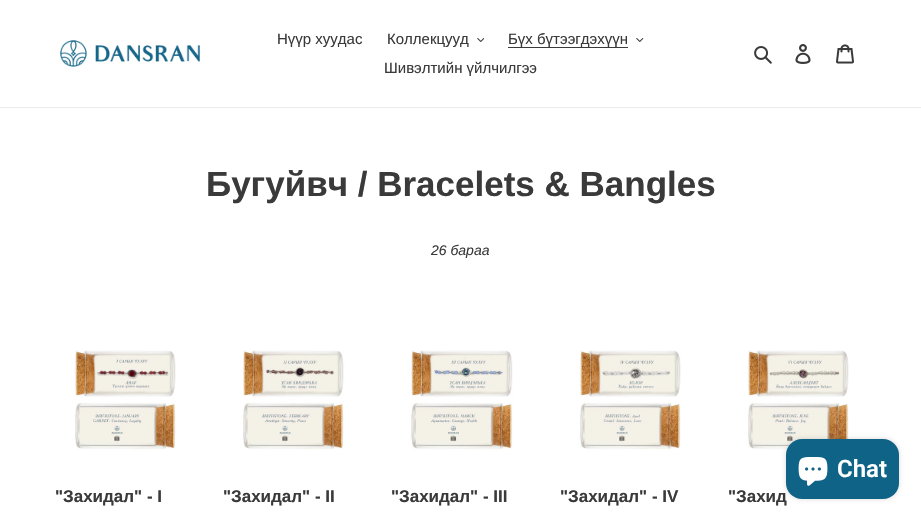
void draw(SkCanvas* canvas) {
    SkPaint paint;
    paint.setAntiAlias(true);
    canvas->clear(0xFFFFFFFF);
    paint.setColor(0xFFEBEBEB);
    canvas->drawRect(SkRect::MakeXYWH(0, 107, 921, 1), paint);
    canvas->drawImageRect(SkImages::DeferredFromEncodedData(SkData::MakeFromFileName("img1.png")), SkRect::MakeXYWH(60, 40, 140, 27), SkSamplingOptions());
    SkFont font1(fontMgr->matchFamilyStyle("Liberation Sans", SkFontStyle::Normal()), 15);
    font1.setSubpixel(true);
    paint.setColor(0xFF3A3A3A);
    canvas->drawString("Нүүр хуудас", 277, 44, font1, paint);
    canvas->drawString("Коллекцууд", 387, 44, font1, paint);
    canvas->drawImageRect(SkImages::DeferredFromEncodedData(SkData::MakeFromFileName("img2.png")), SkRect::MakeXYWH(477, 38, 7, 4), SkSamplingOptions());
    canvas->drawRect(SkRect::MakeXYWH(508, 47, 120, 1), paint);
    canvas->drawString("Бүх бүтээгдэхүүн", 508, 44, font1, paint);
    canvas->drawImageRect(SkImages::DeferredFromEncodedData(SkData::MakeFromFileName("img3.png")), SkRect::MakeXYWH(636, 38, 8, 4), SkSamplingOptions());
    canvas->drawString("Шивэлтийн үйлчилгээ", 384, 73, font1, paint);
    canvas->drawImageRect(SkImages::DeferredFromEncodedData(SkData::MakeFromFileName("img4.png")), SkRect::MakeXYWH(754, 46, 18, 18), SkSamplingOptions());
    canvas->drawImageRect(SkImages::DeferredFromEncodedData(SkData::MakeFromFileName("img5.png")), SkRect::MakeXYWH(795, 44, 16, 20), SkSamplingOptions());
    canvas->drawImageRect(SkImages::DeferredFromEncodedData(SkData::MakeFromFileName("img6.png")), SkRect::MakeXYWH(836, 44, 18, 20), SkSamplingOptions());
    SkFont font2(fontMgr->matchFamilyStyle("Liberation Sans", SkFontStyle::Bold()), 35);
    font2.setSubpixel(true);
    canvas->drawString("Бугуйвч / Bracelets & Bangles", 206, 196, font2, paint);
    SkFont font3(fontMgr->matchFamilyStyle("Liberation Sans", SkFontStyle::Italic()), 14);
    font3.setSubpixel(true);
    canvas->drawString("26 бараа", 431, 255, font3, paint);
    canvas->drawImageRect(SkImages::DeferredFromEncodedData(SkData::MakeFromFileName("img7.png")), SkRect::MakeXYWH(74, 350, 102, 100), SkSamplingOptions());
    SkFont font4(fontMgr->matchFamilyStyle("Liberation Sans", SkFontStyle::Bold()), 17);
    font4.setSubpixel(true);
    canvas->drawString("\"Захидал\" - I", 55, 502, font4, paint);
    canvas->drawImageRect(SkImages::DeferredFromEncodedData(SkData::MakeFromFileName("img8.png")), SkRect::MakeXYWH(242, 350, 103, 100), SkSamplingOptions());
    canvas->drawString("\"Захидал\" - II", 223, 502, font4, paint);
    canvas->drawImageRect(SkImages::DeferredFromEncodedData(SkData::MakeFromFileName("img9.png")), SkRect::MakeXYWH(410, 350, 103, 100), SkSamplingOptions());
    canvas->drawString("\"Захидал\" - III", 391, 502, font4, paint);
    canvas->drawImageRect(SkImages::DeferredFromEncodedData(SkData::MakeFromFileName("img10.png")), SkRect::MakeXYWH(579, 350, 102, 100), SkSamplingOptions());
    canvas->drawString("\"Захидал\" - IV", 560, 502, font4, paint);
    canvas->drawImageRect(SkImages::DeferredFromEncodedData(SkData::MakeFromFileName("img11.png")), SkRect::MakeXYWH(747, 350, 102, 100), SkSamplingOptions());
    canvas->drawString("\"Захид", 728, 502, font4, paint);
    paint.setColor(0x26000000);
    paint.setMaskFilter(SkMaskFilter::MakeBlur(kNormal_SkBlurStyle, 2.5f));
    canvas->drawRoundRect(SkRect::MakeXYWH(786, 439, 113, 60), 16, 16, paint);
    paint.setMaskFilter(nullptr);
    paint.setColor(0xFF0E6386);
    canvas->drawRoundRect(SkRect::MakeXYWH(786, 439, 113, 60), 16, 16, paint);
    canvas->drawImageRect(SkImages::DeferredFromEncodedData(SkData::MakeFromFileName("img12.png")), SkRect::MakeXYWH(798, 457, 30, 29), SkSamplingOptions());
    SkFont font5(fontMgr->matchFamilyStyle("Roboto", SkFontStyle(600, SkFontStyle::kNormal_Width, SkFontStyle::kUpright_Slant)), 24);
    font5.setSubpixel(true);
    paint.setColor(0xFFFFFFFF);
    canvas->drawString("Chat", 837, 477, font5, paint);
}
